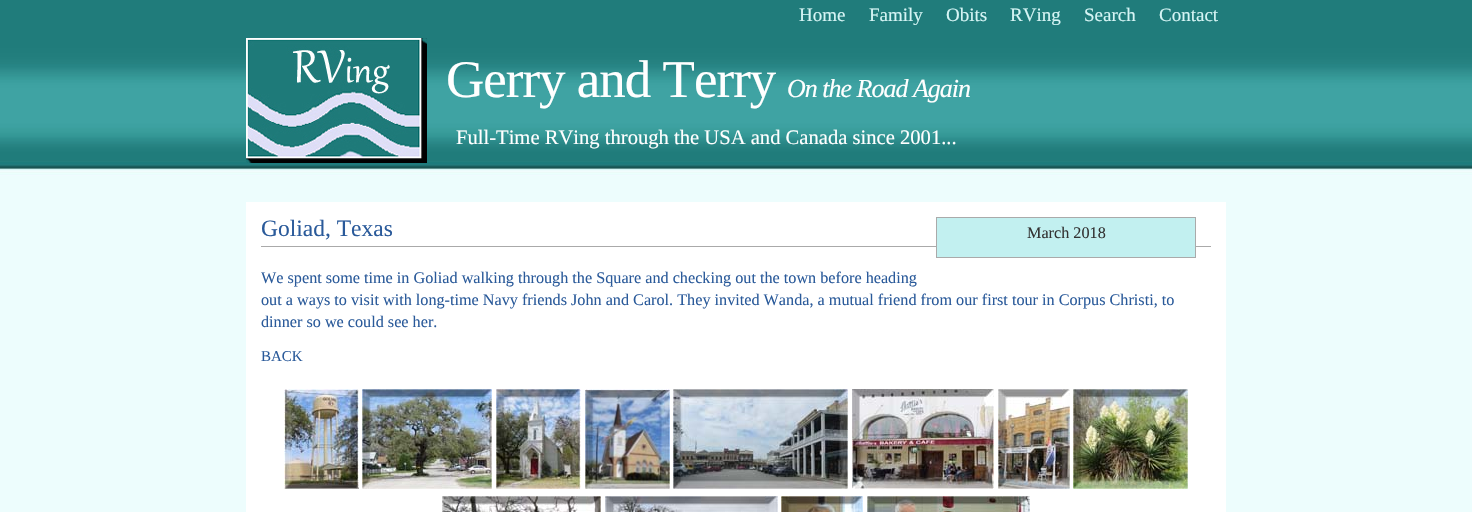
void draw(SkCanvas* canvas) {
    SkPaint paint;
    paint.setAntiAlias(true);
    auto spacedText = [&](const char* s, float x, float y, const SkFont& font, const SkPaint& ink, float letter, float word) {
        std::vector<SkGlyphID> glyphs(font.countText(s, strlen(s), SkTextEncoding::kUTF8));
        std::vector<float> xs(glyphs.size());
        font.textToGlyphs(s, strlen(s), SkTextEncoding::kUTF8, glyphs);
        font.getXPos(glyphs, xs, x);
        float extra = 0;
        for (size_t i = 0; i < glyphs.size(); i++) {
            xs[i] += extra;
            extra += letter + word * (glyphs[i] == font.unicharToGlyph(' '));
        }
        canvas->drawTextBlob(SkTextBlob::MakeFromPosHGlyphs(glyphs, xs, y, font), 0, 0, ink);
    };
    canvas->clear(0xFFFFFFFF);
    canvas->drawImageRect(SkImages::DeferredFromEncodedData(SkData::MakeFromFileName("img1.png")), SkRect::MakeXYWH(0, 0, 1472, 512), SkSamplingOptions());
    SkFont font1(fontMgr->matchFamilyStyle("Liberation Serif", SkFontStyle::Normal()), 19);
    font1.setSubpixel(true);
    paint.setColor(0xFFD6F5F5);
    canvas->drawString("Home", 799, 21, font1, paint);
    canvas->drawString("Family", 869, 21, font1, paint);
    canvas->drawString("Obits", 946, 21, font1, paint);
    canvas->drawString("RVing", 1010, 21, font1, paint);
    canvas->drawString("Search", 1084, 21, font1, paint);
    canvas->drawString("Contact", 1159, 21, font1, paint);
    canvas->drawImageRect(SkImages::DeferredFromEncodedData(SkData::MakeFromFileName("img2.png")), SkRect::MakeXYWH(246, 38, 181, 125), SkSamplingOptions());
    SkFont font2(fontMgr->matchFamilyStyle("Liberation Serif", SkFontStyle::Normal()), 53);
    font2.setSubpixel(true);
    paint.setColor(0xFFFFFFFF);
    spacedText("Gerry and Terry", 446, 97, font2, paint, -1, 0);
    SkFont font3(fontMgr->matchFamilyStyle("Liberation Serif", SkFontStyle::Italic()), 26);
    font3.setSubpixel(true);
    spacedText("On the Road Again", 787, 97, font3, paint, -1, 0);
    SkFont font4(fontMgr->matchFamilyStyle("Liberation Serif", SkFontStyle::Normal()), 20.6f);
    font4.setSubpixel(true);
    canvas->drawString("Full-Time RVing through the USA and Canada since 2001...", 456, 144, font4, paint);
    canvas->drawRect(SkRect::MakeXYWH(246, 202, 980, 310), paint);
    paint.setColor(0xFFAAAAAA);
    canvas->drawRect(SkRect::MakeXYWH(261, 246, 950, 1), paint);
    SkFont font5(fontMgr->matchFamilyStyle("Liberation Serif", SkFontStyle::Normal()), 23.5f);
    font5.setSubpixel(true);
    paint.setColor(0xFF2A5A9A);
    canvas->drawString("Goliad, Texas", 261, 236, font5, paint);
    paint.setColor(0xFFC2F0F0);
    canvas->drawRect(SkRect::MakeXYWH(936.5f, 217.5f, 259, 40), paint);
    paint.setStyle(SkPaint::kStroke_Style);
    paint.setStrokeWidth(1);
    paint.setColor(0xFFAAAAAA);
    canvas->drawRect(SkRect::MakeXYWH(936.5f, 217.5f, 259, 40), paint);
    SkFont font6(fontMgr->matchFamilyStyle("Liberation Serif", SkFontStyle::Normal()), 16.2f);
    font6.setSubpixel(true);
    paint.setStyle(SkPaint::kFill_Style);
    paint.setColor(0xFF333333);
    canvas->drawString("March 2018", 1027, 238, font6, paint);
    paint.setColor(0xFF2A5A9A);
    canvas->drawString("We spent some time in Goliad walking through the Square and checking out the town before heading", 261, 283, font6, paint);
    canvas->drawString("out a ways to visit with long-time Navy friends John and Carol. They invited Wanda, a mutual friend from our first tour in Corpus Christi, to", 261, 305, font6, paint);
    canvas->drawString("dinner so we could see her.", 261, 327, font6, paint);
    SkFont font7(fontMgr->matchFamilyStyle("Liberation Serif", SkFontStyle::Normal()), 15);
    font7.setSubpixel(true);
    canvas->drawString("BACK", 261, 361, font7, paint);
    canvas->drawImageRect(SkImages::DeferredFromEncodedData(SkData::MakeFromFileName("img3.png")), SkRect::MakeXYWH(284, 389, 75, 100), SkSamplingOptions());
    canvas->drawImageRect(SkImages::DeferredFromEncodedData(SkData::MakeFromFileName("img4.png")), SkRect::MakeXYWH(362, 389, 130, 100), SkSamplingOptions());
    canvas->drawImageRect(SkImages::DeferredFromEncodedData(SkData::MakeFromFileName("img5.png")), SkRect::MakeXYWH(496, 389, 85, 100), SkSamplingOptions());
    canvas->drawImageRect(SkImages::DeferredFromEncodedData(SkData::MakeFromFileName("img6.png")), SkRect::MakeXYWH(585, 389, 85, 100), SkSamplingOptions());
    canvas->drawImageRect(SkImages::DeferredFromEncodedData(SkData::MakeFromFileName("img7.png")), SkRect::MakeXYWH(673, 389, 175, 100), SkSamplingOptions());
    canvas->drawImageRect(SkImages::DeferredFromEncodedData(SkData::MakeFromFileName("img8.png")), SkRect::MakeXYWH(852, 389, 142, 100), SkSamplingOptions());
    canvas->drawImageRect(SkImages::DeferredFromEncodedData(SkData::MakeFromFileName("img9.png")), SkRect::MakeXYWH(998, 389, 72, 100), SkSamplingOptions());
    canvas->drawImageRect(SkImages::DeferredFromEncodedData(SkData::MakeFromFileName("img10.png")), SkRect::MakeXYWH(1073, 389, 115, 100), SkSamplingOptions());
    canvas->drawImageRect(SkImages::DeferredFromEncodedData(SkData::MakeFromFileName("img11.png")), SkRect::MakeXYWH(442, 496, 159, 16), SkSamplingOptions());
    canvas->drawImageRect(SkImages::DeferredFromEncodedData(SkData::MakeFromFileName("img12.png")), SkRect::MakeXYWH(605, 496, 173, 16), SkSamplingOptions());
    canvas->drawImageRect(SkImages::DeferredFromEncodedData(SkData::MakeFromFileName("img13.png")), SkRect::MakeXYWH(781, 496, 82, 16), SkSamplingOptions());
    canvas->drawImageRect(SkImages::DeferredFromEncodedData(SkData::MakeFromFileName("img14.png")), SkRect::MakeXYWH(867, 496, 163, 16), SkSamplingOptions());
}
